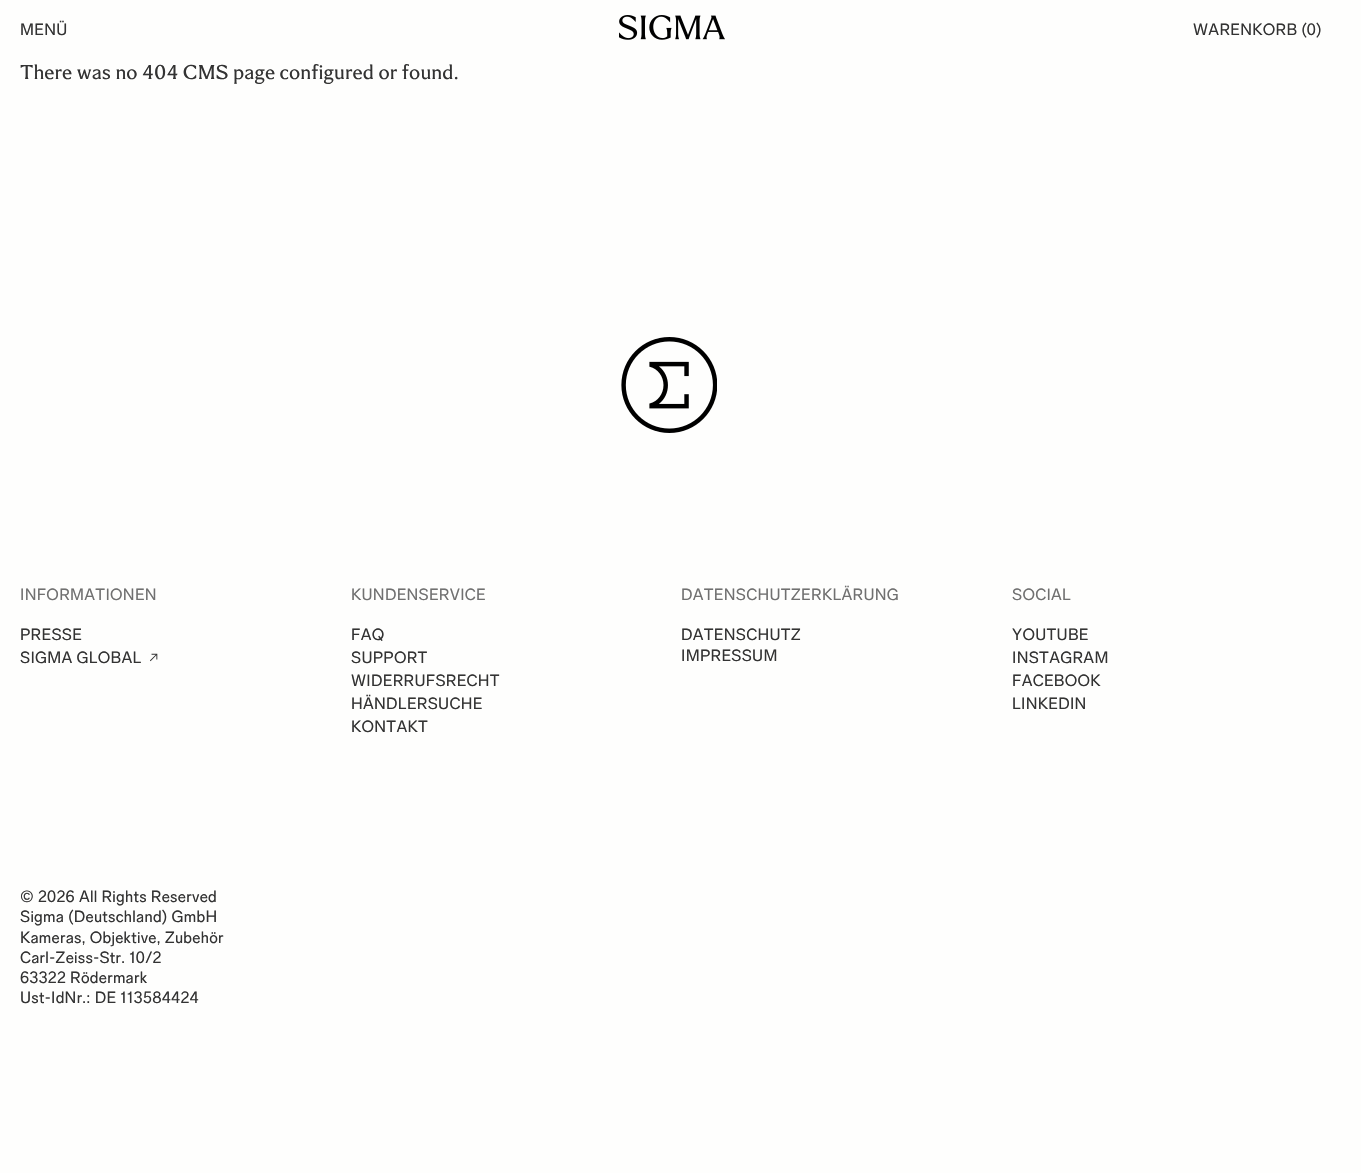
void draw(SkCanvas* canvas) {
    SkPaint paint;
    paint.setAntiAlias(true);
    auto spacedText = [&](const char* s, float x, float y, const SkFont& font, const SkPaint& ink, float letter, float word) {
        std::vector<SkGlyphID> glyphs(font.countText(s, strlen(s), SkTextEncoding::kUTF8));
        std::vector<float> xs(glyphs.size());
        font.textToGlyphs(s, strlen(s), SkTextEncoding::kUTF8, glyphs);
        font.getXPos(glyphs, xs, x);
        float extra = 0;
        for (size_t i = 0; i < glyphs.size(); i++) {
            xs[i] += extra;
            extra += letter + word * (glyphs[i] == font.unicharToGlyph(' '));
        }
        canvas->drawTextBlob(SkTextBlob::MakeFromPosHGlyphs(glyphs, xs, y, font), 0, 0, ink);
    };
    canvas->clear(0xFFFEFEFD);
    SkFont font1(fontMgr->matchFamilyStyle("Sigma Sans", SkFontStyle::Normal()), 16.25f);
    font1.setSubpixel(true);
    paint.setColor(0xFF333333);
    spacedText("MENÜ", 20, 35, font1, paint, 0.3f, 0);
    canvas->drawImageRect(SkImages::DeferredFromEncodedData(SkData::MakeFromFileName("img1.png")), SkRect::MakeXYWH(619, 15, 106, 25), SkSamplingOptions());
    spacedText("WARENKORB (0)", 1193, 35, font1, paint, 0.3f, 0);
    SkFont font2(fontMgr->matchFamilyStyle("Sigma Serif", SkFontStyle::Normal()), 20);
    font2.setSubpixel(true);
    spacedText("There was no 404 CMS page configured or found.", 20, 79, font2, paint, 0.1f, 0);
    canvas->drawImageRect(SkImages::DeferredFromEncodedData(SkData::MakeFromFileName("img2.png")), SkRect::MakeXYWH(621, 337, 96, 96), SkSamplingOptions());
    paint.setColor(0xFF707070);
    spacedText("INFORMATIONEN", 20, 600, font1, paint, 0.3f, 0);
    paint.setColor(0xFF333333);
    spacedText("PRESSE", 20, 640, font1, paint, 0.3f, 0);
    spacedText("SIGMA GLOBAL", 20, 663, font1, paint, 0.3f, 0);
    canvas->drawImageRect(SkImages::DeferredFromEncodedData(SkData::MakeFromFileName("img3.png")), SkRect::MakeXYWH(150, 653, 8, 9), SkSamplingOptions());
    paint.setColor(0xFF707070);
    spacedText("KUNDENSERVICE", 351, 600, font1, paint, 0.3f, 0);
    paint.setColor(0xFF333333);
    spacedText("FAQ", 351, 640, font1, paint, 0.3f, 0);
    spacedText("SUPPORT", 351, 663, font1, paint, 0.3f, 0);
    spacedText("WIDERRUFSRECHT", 351, 686, font1, paint, 0.3f, 0);
    spacedText("HÄNDLERSUCHE", 351, 709, font1, paint, 0.3f, 0);
    spacedText("KONTAKT", 351, 732, font1, paint, 0.3f, 0);
    paint.setColor(0xFF707070);
    spacedText("DATENSCHUTZERKLÄRUNG", 681, 600, font1, paint, 0.3f, 0);
    paint.setColor(0xFF333333);
    spacedText("DATENSCHUTZ", 681, 640, font1, paint, 0.3f, 0);
    spacedText("IMPRESSUM", 681, 661, font1, paint, 0.3f, 0);
    paint.setColor(0xFF707070);
    spacedText("SOCIAL", 1012, 600, font1, paint, 0.3f, 0);
    paint.setColor(0xFF333333);
    spacedText("YOUTUBE", 1012, 640, font1, paint, 0.3f, 0);
    spacedText("INSTAGRAM", 1012, 663, font1, paint, 0.3f, 0);
    spacedText("FACEBOOK", 1012, 686, font1, paint, 0.3f, 0);
    spacedText("LINKEDIN", 1012, 709, font1, paint, 0.3f, 0);
    spacedText("© 2026 All Rights Reserved", 20, 902, font1, paint, 0.3f, 0);
    spacedText("Sigma (Deutschland) GmbH", 20, 922, font1, paint, 0.3f, 0);
    spacedText("Kameras, Objektive, Zubehör", 20, 943, font1, paint, 0.3f, 0);
    spacedText("Carl-Zeiss-Str. 10/2", 20, 963, font1, paint, 0.3f, 0);
    spacedText("63322 Rödermark", 20, 983, font1, paint, 0.3f, 0);
    spacedText("Ust-IdNr.: DE 113584424", 20, 1003, font1, paint, 0.3f, 0);
}
